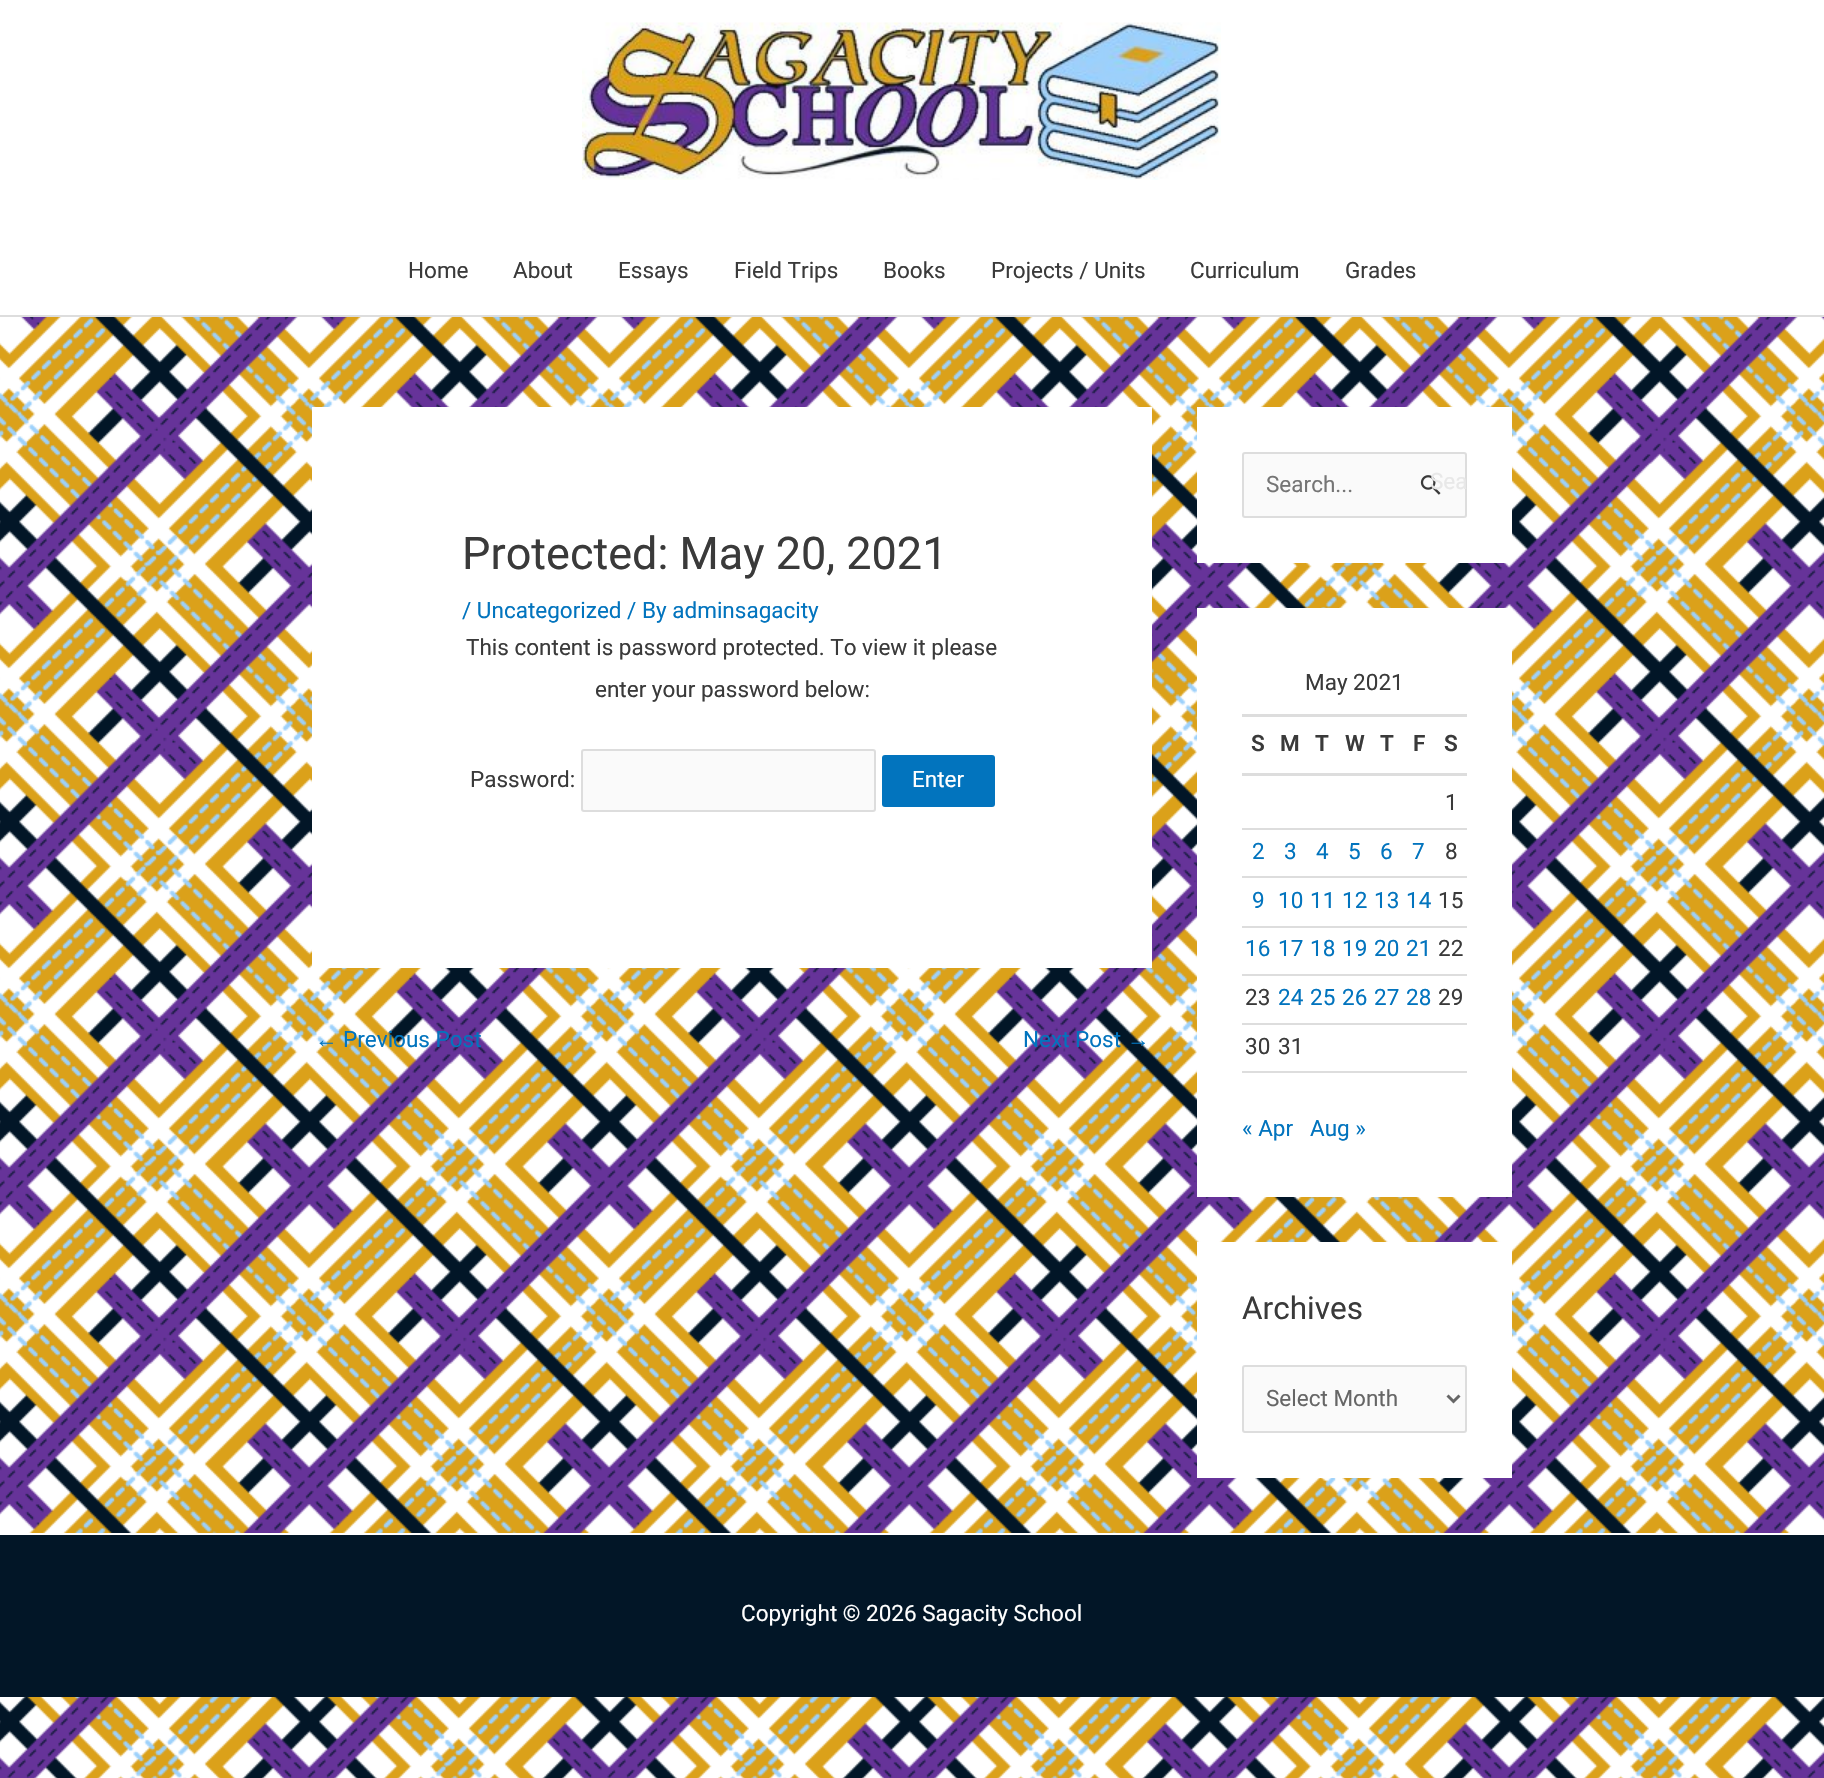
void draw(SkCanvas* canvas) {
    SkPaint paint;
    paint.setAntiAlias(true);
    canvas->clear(0xFFFFFFFF);
    canvas->drawImageRect(SkImages::DeferredFromEncodedData(SkData::MakeFromFileName("img1.png")), SkRect::MakeXYWH(0, 317, 1824, 1461), SkSamplingOptions());
    paint.setColor(0xFFDDDDDD);
    canvas->drawRect(SkRect::MakeXYWH(0, 315, 1824, 2), paint);
    canvas->drawImageRect(SkImages::DeferredFromEncodedData(SkData::MakeFromFileName("img2.png")), SkRect::MakeXYWH(582, 22, 639, 158), SkSamplingOptions());
    SkFont font1(fontMgr->matchFamilyStyle("Roboto", SkFontStyle::Normal()), 22.5f);
    font1.setSubpixel(true);
    paint.setColor(0xFF3A3A3A);
    canvas->drawString("Home", 408, 278, font1, paint);
    canvas->drawString("About", 513, 278, font1, paint);
    canvas->drawString("Essays", 618, 278, font1, paint);
    canvas->drawString("Field Trips", 734, 278, font1, paint);
    canvas->drawString("Books", 883, 278, font1, paint);
    canvas->drawString("Projects / Units", 991, 278, font1, paint);
    canvas->drawString("Curriculum", 1190, 278, font1, paint);
    canvas->drawString("Grades", 1345, 278, font1, paint);
    paint.setColor(0xFFFFFFFF);
    canvas->drawRect(SkRect::MakeXYWH(312, 407, 840, 561), paint);
    SkFont font2(fontMgr->matchFamilyStyle("Roboto", SkFontStyle::Normal()), 45);
    font2.setSubpixel(true);
    paint.setColor(0xFF3A3A3A);
    canvas->drawString("Protected: May 20, 2021", 462, 569, font2, paint);
    paint.setColor(0xFF0274BE);
    canvas->drawString("/ Uncategorized / By adminsagacity", 462, 618, font1, paint);
    paint.setColor(0xFF3A3A3A);
    canvas->drawString("This content is password protected. To view it please", 466, 655, font1, paint);
    canvas->drawString("enter your password below:", 595, 697, font1, paint);
    canvas->drawString("Password:", 470, 787, font1, paint);
    paint.setColor(0xFFFAFAFA);
    canvas->drawRoundRect(SkRect::MakeXYWH(582, 750, 293, 61), 2, 2, paint);
    paint.setStyle(SkPaint::kStroke_Style);
    paint.setStrokeWidth(2);
    paint.setColor(0xFFDDDDDD);
    canvas->drawRoundRect(SkRect::MakeXYWH(582, 750, 293, 61), 2, 2, paint);
    paint.setStyle(SkPaint::kFill_Style);
    paint.setColor(0xFF0274BE);
    canvas->drawRoundRect(SkRect::MakeXYWH(882, 755, 113, 52), 3, 3, paint);
    paint.setColor(0xFFFFFFFF);
    canvas->drawString("Enter", 912, 787, font1, paint);
    SkFont font3(fontMgr->matchFamilyStyle("Liberation Sans", SkFontStyle::Normal()), 22.5f);
    font3.setSubpixel(true);
    paint.setColor(0xFF0274BE);
    canvas->drawString("←", 315, 1047, font3, paint);
    canvas->drawString("Previous Post", 343, 1047, font1, paint);
    canvas->drawString("Next Post", 1023, 1047, font1, paint);
    canvas->drawString("→", 1127, 1047, font3, paint);
    paint.setColor(0xFFFFFFFF);
    canvas->drawRect(SkRect::MakeXYWH(1197, 407, 315, 156), paint);
    paint.setColor(0xFFFAFAFA);
    canvas->drawRoundRect(SkRect::MakeXYWH(1243, 453, 223, 64), 2, 2, paint);
    paint.setStyle(SkPaint::kStroke_Style);
    paint.setColor(0xFFDDDDDD);
    canvas->drawRoundRect(SkRect::MakeXYWH(1243, 453, 223, 64), 2, 2, paint);
    paint.setStyle(SkPaint::kFill_Style);
    paint.setColor(0xFF757575);
    canvas->drawString("Search...", 1266, 492, font1, paint);
    canvas->drawImageRect(SkImages::DeferredFromEncodedData(SkData::MakeFromFileName("img3.png")), SkRect::MakeXYWH(1420, 475, 21, 20), SkSamplingOptions());
    paint.setColor(0xFFE8E8E8);
    canvas->drawString("Sea", 1430, 489, font1, paint);
    paint.setColor(0xFFFFFFFF);
    canvas->drawRect(SkRect::MakeXYWH(1197, 608, 315, 589), paint);
    paint.setColor(0xFF3A3A3A);
    canvas->drawString("May 2021", 1305, 690, font1, paint);
    paint.setColor(0xFFDDDDDD);
    canvas->drawRect(SkRect::MakeXYWH(1242, 714, 225, 3), paint);
    canvas->drawRect(SkRect::MakeXYWH(1242, 773, 225, 3), paint);
    SkFont font4(fontMgr->matchFamilyStyle("Roboto", SkFontStyle(600, SkFontStyle::kNormal_Width, SkFontStyle::kUpright_Slant)), 22.5f);
    font4.setSubpixel(true);
    paint.setColor(0xFF3A3A3A);
    canvas->drawString("S", 1251, 751, font4, paint);
    canvas->drawString("M", 1280, 751, font4, paint);
    canvas->drawString("T", 1315, 751, font4, paint);
    canvas->drawString("W", 1345, 751, font4, paint);
    canvas->drawString("T", 1380, 751, font4, paint);
    canvas->drawString("F", 1413, 751, font4, paint);
    canvas->drawString("S", 1444, 751, font4, paint);
    canvas->drawString("1", 1445, 810, font1, paint);
    paint.setColor(0xFFDDDDDD);
    canvas->drawRect(SkRect::MakeXYWH(1242, 828, 225, 2), paint);
    canvas->drawRect(SkRect::MakeXYWH(1242, 876, 225, 2), paint);
    paint.setColor(0xFF0274BE);
    canvas->drawString("2", 1252, 859, font1, paint);
    canvas->drawString("3", 1284, 859, font1, paint);
    canvas->drawString("4", 1316, 859, font1, paint);
    canvas->drawString("5", 1348, 859, font1, paint);
    canvas->drawString("6", 1380, 859, font1, paint);
    canvas->drawString("7", 1412, 859, font1, paint);
    paint.setColor(0xFF3A3A3A);
    canvas->drawString("8", 1445, 859, font1, paint);
    paint.setColor(0xFFDDDDDD);
    canvas->drawRect(SkRect::MakeXYWH(1242, 926, 225, 2), paint);
    paint.setColor(0xFF0274BE);
    canvas->drawString("9", 1252, 908, font1, paint);
    canvas->drawString("10", 1278, 908, font1, paint);
    canvas->drawString("11", 1310, 908, font1, paint);
    canvas->drawString("12", 1342, 908, font1, paint);
    canvas->drawString("13", 1374, 908, font1, paint);
    canvas->drawString("14", 1406, 908, font1, paint);
    paint.setColor(0xFF3A3A3A);
    canvas->drawString("15", 1438, 908, font1, paint);
    paint.setColor(0xFFDDDDDD);
    canvas->drawRect(SkRect::MakeXYWH(1242, 974, 225, 2), paint);
    paint.setColor(0xFF0274BE);
    canvas->drawString("16", 1245, 956, font1, paint);
    canvas->drawString("17", 1278, 956, font1, paint);
    canvas->drawString("18", 1310, 956, font1, paint);
    canvas->drawString("19", 1342, 956, font1, paint);
    canvas->drawString("20", 1374, 956, font1, paint);
    canvas->drawString("21", 1406, 956, font1, paint);
    paint.setColor(0xFF3A3A3A);
    canvas->drawString("22", 1438, 956, font1, paint);
    paint.setColor(0xFFDDDDDD);
    canvas->drawRect(SkRect::MakeXYWH(1242, 1023, 225, 2), paint);
    paint.setColor(0xFF3A3A3A);
    canvas->drawString("23", 1245, 1005, font1, paint);
    paint.setColor(0xFF0274BE);
    canvas->drawString("24", 1278, 1005, font1, paint);
    canvas->drawString("25", 1310, 1005, font1, paint);
    canvas->drawString("26", 1342, 1005, font1, paint);
    canvas->drawString("27", 1374, 1005, font1, paint);
    canvas->drawString("28", 1406, 1005, font1, paint);
    paint.setColor(0xFF3A3A3A);
    canvas->drawString("29", 1438, 1005, font1, paint);
    paint.setColor(0xFFDDDDDD);
    canvas->drawRect(SkRect::MakeXYWH(1242, 1071, 225, 2), paint);
    paint.setColor(0xFF3A3A3A);
    canvas->drawString("30", 1245, 1054, font1, paint);
    canvas->drawString("31", 1278, 1054, font1, paint);
    paint.setColor(0xFF0274BE);
    canvas->drawString("« Apr", 1242, 1136, font1, paint);
    canvas->drawString("Aug »", 1310, 1136, font1, paint);
    paint.setColor(0xFFFFFFFF);
    canvas->drawRect(SkRect::MakeXYWH(1197, 1242, 315, 236), paint);
    SkFont font5(fontMgr->matchFamilyStyle("Roboto", SkFontStyle::Normal()), 31.5f);
    font5.setSubpixel(true);
    paint.setColor(0xFF3A3A3A);
    canvas->drawString("Archives", 1242, 1319, font5, paint);
    paint.setColor(0xFFFAFAFA);
    canvas->drawRoundRect(SkRect::MakeXYWH(1243, 1366, 223, 66), 2, 2, paint);
    paint.setStyle(SkPaint::kStroke_Style);
    paint.setColor(0xFFDDDDDD);
    canvas->drawRoundRect(SkRect::MakeXYWH(1243, 1366, 223, 66), 2, 2, paint);
    paint.setStrokeWidth(3);
    paint.setColor(0xFF666666);
    canvas->drawPath(SkPathBuilder().moveTo(1447.5f, 1395.5f).lineTo(1453.5f, 1401.5f).lineTo(1459.5f, 1395.5f).detach(), paint);
    paint.setStyle(SkPaint::kFill_Style);
    canvas->drawString("Select Month", 1266, 1406, font1, paint);
    paint.setColor(0xFFFFFFFF);
    canvas->drawRect(SkRect::MakeXYWH(26, 1533, 1767, 2), paint);
    paint.setColor(0xFF021627);
    canvas->drawRect(SkRect::MakeXYWH(0, 1535, 1824, 162), paint);
    paint.setColor(0xFFFFFFFF);
    canvas->drawString("Copyright © 2026 Sagacity School", 741, 1621, font1, paint);
}
